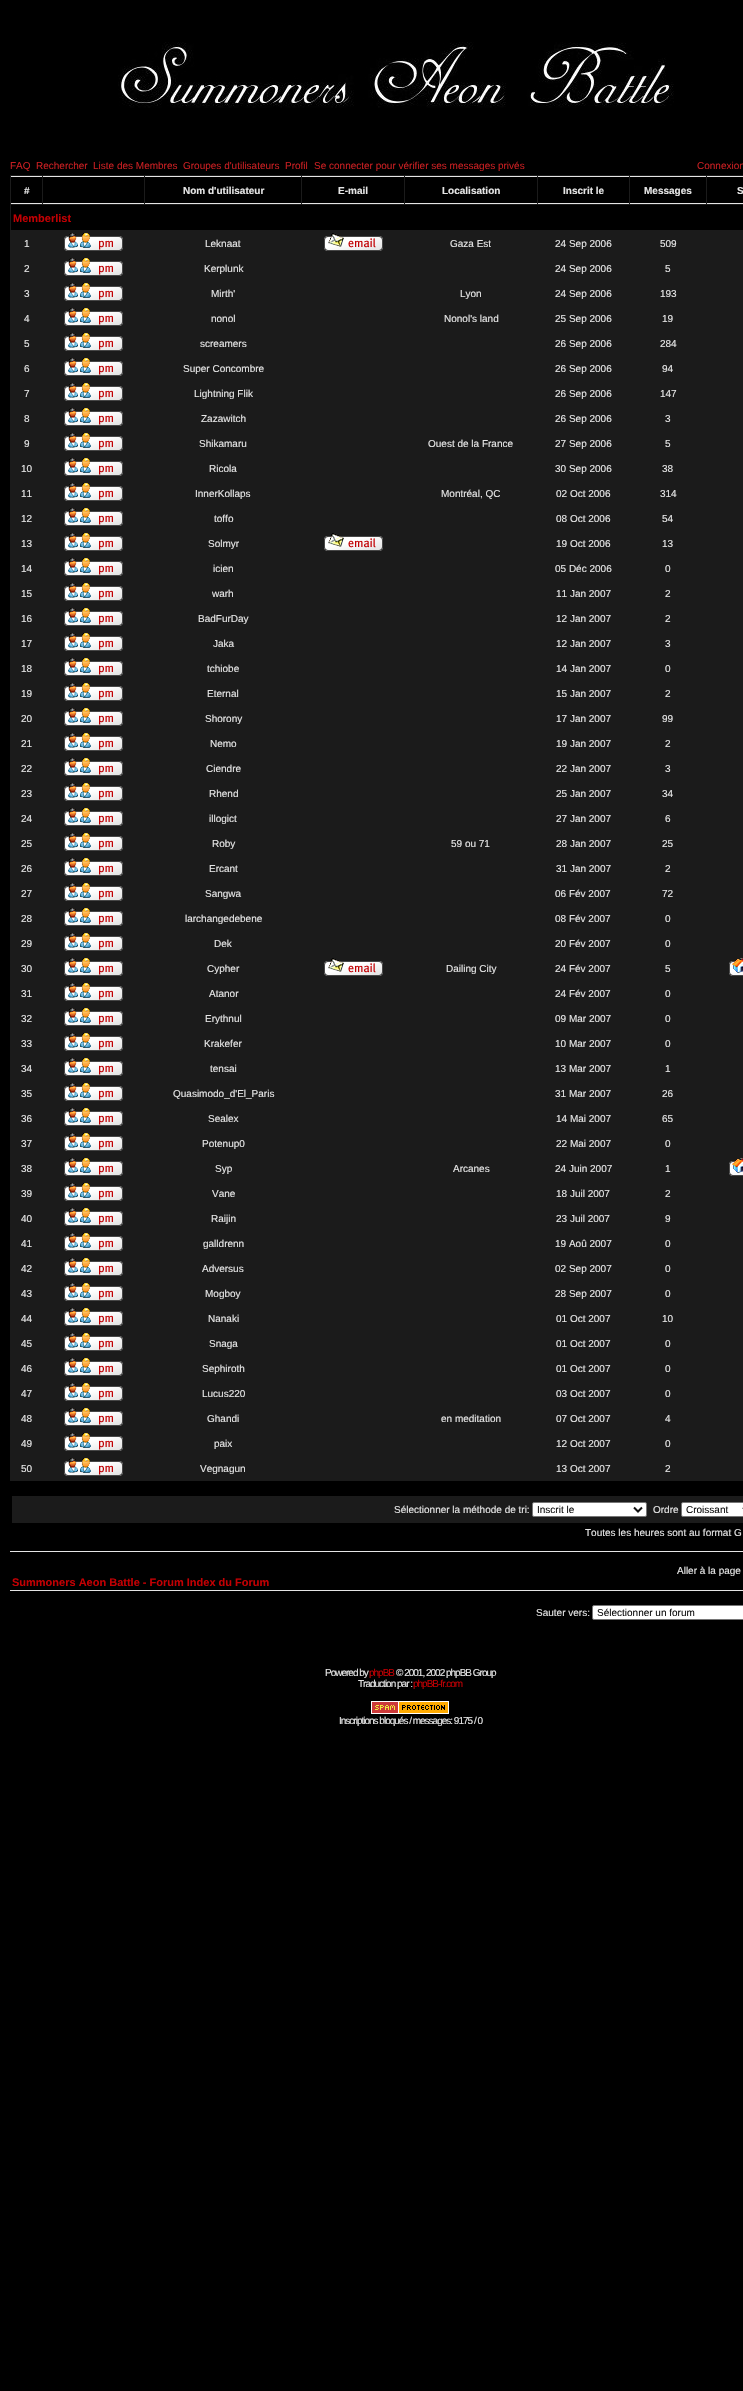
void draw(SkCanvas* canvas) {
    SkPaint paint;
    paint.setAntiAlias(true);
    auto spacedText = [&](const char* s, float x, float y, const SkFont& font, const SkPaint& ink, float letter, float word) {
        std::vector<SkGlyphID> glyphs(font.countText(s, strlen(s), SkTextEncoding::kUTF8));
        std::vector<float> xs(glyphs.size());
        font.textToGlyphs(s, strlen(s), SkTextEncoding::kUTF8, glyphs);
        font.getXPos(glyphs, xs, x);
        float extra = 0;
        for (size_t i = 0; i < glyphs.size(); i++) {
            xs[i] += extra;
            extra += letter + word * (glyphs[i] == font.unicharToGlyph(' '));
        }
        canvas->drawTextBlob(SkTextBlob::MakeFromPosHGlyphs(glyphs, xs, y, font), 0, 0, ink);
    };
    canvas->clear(0xFF000000);
    canvas->drawImageRect(SkImages::DeferredFromEncodedData(SkData::MakeFromFileName("img1.png")), SkRect::MakeXYWH(118, 42, 556, 66), SkSamplingOptions());
    SkFont font1(fontMgr->matchFamilyStyle("Liberation Sans", SkFontStyle::Normal()), 10);
    font1.setSubpixel(true);
    paint.setColor(0xFFC51E21);
    canvas->drawString("FAQ", 10, 169, font1, paint);
    canvas->drawString("Rechercher", 36, 169, font1, paint);
    canvas->drawString("Liste des Membres", 93, 169, font1, paint);
    canvas->drawString("Groupes d'utilisateurs", 183, 169, font1, paint);
    canvas->drawString("Profil", 285, 169, font1, paint);
    canvas->drawString("Se connecter pour vérifier ses messages privés", 314, 169, font1, paint);
    canvas->drawString("Connexion", 697, 169, font1, paint);
    paint.setColor(0xFF1B1B1B);
    canvas->drawRect(SkRect::MakeXYWH(10, 175, 733, 1306), paint);
    paint.setColor(0xFF000000);
    canvas->drawRect(SkRect::MakeXYWH(11, 177, 31, 26), paint);
    paint.setColor(0xFFE5E5E5);
    canvas->drawRect(SkRect::MakeXYWH(11, 176, 31, 1), paint);
    canvas->drawRect(SkRect::MakeXYWH(11, 203, 31, 1), paint);
    SkFont font2(fontMgr->matchFamilyStyle("Liberation Sans", SkFontStyle::Bold()), 10);
    font2.setSubpixel(true);
    canvas->drawString("#", 24, 194, font2, paint);
    paint.setColor(0xFF000000);
    canvas->drawRect(SkRect::MakeXYWH(43, 177, 101, 26), paint);
    paint.setColor(0xFFE5E5E5);
    canvas->drawRect(SkRect::MakeXYWH(43, 176, 101, 1), paint);
    canvas->drawRect(SkRect::MakeXYWH(43, 203, 101, 1), paint);
    paint.setColor(0xFF000000);
    canvas->drawRect(SkRect::MakeXYWH(145, 177, 156, 26), paint);
    paint.setColor(0xFFE5E5E5);
    canvas->drawRect(SkRect::MakeXYWH(145, 176, 156, 1), paint);
    canvas->drawRect(SkRect::MakeXYWH(145, 203, 156, 1), paint);
    canvas->drawString("Nom d'utilisateur", 183, 194, font2, paint);
    paint.setColor(0xFF000000);
    canvas->drawRect(SkRect::MakeXYWH(302, 177, 102, 26), paint);
    paint.setColor(0xFFE5E5E5);
    canvas->drawRect(SkRect::MakeXYWH(302, 176, 102, 1), paint);
    canvas->drawRect(SkRect::MakeXYWH(302, 203, 102, 1), paint);
    canvas->drawString("E-mail", 338, 194, font2, paint);
    paint.setColor(0xFF000000);
    canvas->drawRect(SkRect::MakeXYWH(405, 177, 132, 26), paint);
    paint.setColor(0xFFE5E5E5);
    canvas->drawRect(SkRect::MakeXYWH(405, 176, 132, 1), paint);
    canvas->drawRect(SkRect::MakeXYWH(405, 203, 132, 1), paint);
    canvas->drawString("Localisation", 442, 194, font2, paint);
    paint.setColor(0xFF000000);
    canvas->drawRect(SkRect::MakeXYWH(538, 177, 91, 26), paint);
    paint.setColor(0xFFE5E5E5);
    canvas->drawRect(SkRect::MakeXYWH(538, 176, 91, 1), paint);
    canvas->drawRect(SkRect::MakeXYWH(538, 203, 91, 1), paint);
    canvas->drawString("Inscrit le", 563, 194, font2, paint);
    paint.setColor(0xFF000000);
    canvas->drawRect(SkRect::MakeXYWH(630, 177, 76, 26), paint);
    paint.setColor(0xFFE5E5E5);
    canvas->drawRect(SkRect::MakeXYWH(630, 176, 76, 1), paint);
    canvas->drawRect(SkRect::MakeXYWH(630, 203, 76, 1), paint);
    canvas->drawString("Messages", 644, 194, font2, paint);
    paint.setColor(0xFF000000);
    canvas->drawRect(SkRect::MakeXYWH(707, 177, 36, 26), paint);
    paint.setColor(0xFFE5E5E5);
    canvas->drawRect(SkRect::MakeXYWH(707, 176, 36, 1), paint);
    canvas->drawRect(SkRect::MakeXYWH(707, 203, 36, 1), paint);
    canvas->drawString("S", 737, 194, font2, paint);
    paint.setColor(0xFF000000);
    canvas->drawRect(SkRect::MakeXYWH(11, 205, 732, 25), paint);
    SkFont font3(fontMgr->matchFamilyStyle("Liberation Sans", SkFontStyle::Bold()), 11);
    font3.setSubpixel(true);
    paint.setColor(0xFFC10003);
    canvas->drawString("Memberlist", 13, 222, font3, paint);
    paint.setColor(0xFFE5E5E5);
    canvas->drawString("1", 24, 247, font1, paint);
    canvas->drawImageRect(SkImages::DeferredFromEncodedData(SkData::MakeFromFileName("img2.png")), SkRect::MakeXYWH(64, 233, 59, 18), SkSamplingOptions());
    canvas->drawString("Leknaat", 205, 247, font1, paint);
    canvas->drawImageRect(SkImages::DeferredFromEncodedData(SkData::MakeFromFileName("img3.png")), SkRect::MakeXYWH(324, 233, 59, 18), SkSamplingOptions());
    canvas->drawString("Gaza Est", 450, 247, font1, paint);
    canvas->drawString("24 Sep 2006", 555, 247, font1, paint);
    canvas->drawString("509", 660, 247, font1, paint);
    canvas->drawString("2", 24, 272, font1, paint);
    canvas->drawImageRect(SkImages::DeferredFromEncodedData(SkData::MakeFromFileName("img2.png")), SkRect::MakeXYWH(64, 258, 59, 18), SkSamplingOptions());
    canvas->drawString("Kerplunk", 204, 272, font1, paint);
    canvas->drawString("24 Sep 2006", 555, 272, font1, paint);
    canvas->drawString("5", 665, 272, font1, paint);
    canvas->drawString("3", 24, 297, font1, paint);
    canvas->drawImageRect(SkImages::DeferredFromEncodedData(SkData::MakeFromFileName("img2.png")), SkRect::MakeXYWH(64, 283, 59, 18), SkSamplingOptions());
    canvas->drawString("Mirth'", 211, 297, font1, paint);
    canvas->drawString("Lyon", 460, 297, font1, paint);
    canvas->drawString("24 Sep 2006", 555, 297, font1, paint);
    canvas->drawString("193", 660, 297, font1, paint);
    canvas->drawString("4", 24, 322, font1, paint);
    canvas->drawImageRect(SkImages::DeferredFromEncodedData(SkData::MakeFromFileName("img2.png")), SkRect::MakeXYWH(64, 308, 59, 18), SkSamplingOptions());
    canvas->drawString("nonol", 211, 322, font1, paint);
    canvas->drawString("Nonol's land", 444, 322, font1, paint);
    canvas->drawString("25 Sep 2006", 555, 322, font1, paint);
    canvas->drawString("19", 662, 322, font1, paint);
    canvas->drawString("5", 24, 347, font1, paint);
    canvas->drawImageRect(SkImages::DeferredFromEncodedData(SkData::MakeFromFileName("img2.png")), SkRect::MakeXYWH(64, 333, 59, 18), SkSamplingOptions());
    canvas->drawString("screamers", 200, 347, font1, paint);
    canvas->drawString("26 Sep 2006", 555, 347, font1, paint);
    canvas->drawString("284", 660, 347, font1, paint);
    canvas->drawString("6", 24, 372, font1, paint);
    canvas->drawImageRect(SkImages::DeferredFromEncodedData(SkData::MakeFromFileName("img2.png")), SkRect::MakeXYWH(64, 358, 59, 18), SkSamplingOptions());
    canvas->drawString("Super Concombre", 183, 372, font1, paint);
    canvas->drawString("26 Sep 2006", 555, 372, font1, paint);
    canvas->drawString("94", 662, 372, font1, paint);
    canvas->drawString("7", 24, 397, font1, paint);
    canvas->drawImageRect(SkImages::DeferredFromEncodedData(SkData::MakeFromFileName("img2.png")), SkRect::MakeXYWH(64, 383, 59, 18), SkSamplingOptions());
    canvas->drawString("Lightning Flik", 194, 397, font1, paint);
    canvas->drawString("26 Sep 2006", 555, 397, font1, paint);
    canvas->drawString("147", 660, 397, font1, paint);
    canvas->drawString("8", 24, 422, font1, paint);
    canvas->drawImageRect(SkImages::DeferredFromEncodedData(SkData::MakeFromFileName("img2.png")), SkRect::MakeXYWH(64, 408, 59, 18), SkSamplingOptions());
    canvas->drawString("Zazawitch", 201, 422, font1, paint);
    canvas->drawString("26 Sep 2006", 555, 422, font1, paint);
    canvas->drawString("3", 665, 422, font1, paint);
    canvas->drawString("9", 24, 447, font1, paint);
    canvas->drawImageRect(SkImages::DeferredFromEncodedData(SkData::MakeFromFileName("img2.png")), SkRect::MakeXYWH(64, 433, 59, 18), SkSamplingOptions());
    canvas->drawString("Shikamaru", 199, 447, font1, paint);
    canvas->drawString("Ouest de la France", 428, 447, font1, paint);
    canvas->drawString("27 Sep 2006", 555, 447, font1, paint);
    canvas->drawString("5", 665, 447, font1, paint);
    canvas->drawString("10", 21, 472, font1, paint);
    canvas->drawImageRect(SkImages::DeferredFromEncodedData(SkData::MakeFromFileName("img2.png")), SkRect::MakeXYWH(64, 458, 59, 18), SkSamplingOptions());
    canvas->drawString("Ricola", 209, 472, font1, paint);
    canvas->drawString("30 Sep 2006", 555, 472, font1, paint);
    canvas->drawString("38", 662, 472, font1, paint);
    canvas->drawString("11", 21, 497, font1, paint);
    canvas->drawImageRect(SkImages::DeferredFromEncodedData(SkData::MakeFromFileName("img2.png")), SkRect::MakeXYWH(64, 483, 59, 18), SkSamplingOptions());
    canvas->drawString("InnerKollaps", 195, 497, font1, paint);
    canvas->drawString("Montréal, QC", 441, 497, font1, paint);
    canvas->drawString("02 Oct 2006", 556, 497, font1, paint);
    canvas->drawString("314", 660, 497, font1, paint);
    canvas->drawString("12", 21, 522, font1, paint);
    canvas->drawImageRect(SkImages::DeferredFromEncodedData(SkData::MakeFromFileName("img2.png")), SkRect::MakeXYWH(64, 508, 59, 18), SkSamplingOptions());
    canvas->drawString("toffo", 214, 522, font1, paint);
    canvas->drawString("08 Oct 2006", 556, 522, font1, paint);
    canvas->drawString("54", 662, 522, font1, paint);
    canvas->drawString("13", 21, 547, font1, paint);
    canvas->drawImageRect(SkImages::DeferredFromEncodedData(SkData::MakeFromFileName("img2.png")), SkRect::MakeXYWH(64, 533, 59, 18), SkSamplingOptions());
    canvas->drawString("Solmyr", 208, 547, font1, paint);
    canvas->drawImageRect(SkImages::DeferredFromEncodedData(SkData::MakeFromFileName("img3.png")), SkRect::MakeXYWH(324, 533, 59, 18), SkSamplingOptions());
    canvas->drawString("19 Oct 2006", 556, 547, font1, paint);
    canvas->drawString("13", 662, 547, font1, paint);
    canvas->drawString("14", 21, 572, font1, paint);
    canvas->drawImageRect(SkImages::DeferredFromEncodedData(SkData::MakeFromFileName("img2.png")), SkRect::MakeXYWH(64, 558, 59, 18), SkSamplingOptions());
    canvas->drawString("icien", 213, 572, font1, paint);
    canvas->drawString("05 Déc 2006", 555, 572, font1, paint);
    canvas->drawString("0", 665, 572, font1, paint);
    canvas->drawString("15", 21, 597, font1, paint);
    canvas->drawImageRect(SkImages::DeferredFromEncodedData(SkData::MakeFromFileName("img2.png")), SkRect::MakeXYWH(64, 583, 59, 18), SkSamplingOptions());
    canvas->drawString("warh", 212, 597, font1, paint);
    canvas->drawString("11 Jan 2007", 556, 597, font1, paint);
    canvas->drawString("2", 665, 597, font1, paint);
    canvas->drawString("16", 21, 622, font1, paint);
    canvas->drawImageRect(SkImages::DeferredFromEncodedData(SkData::MakeFromFileName("img2.png")), SkRect::MakeXYWH(64, 608, 59, 18), SkSamplingOptions());
    canvas->drawString("BadFurDay", 198, 622, font1, paint);
    canvas->drawString("12 Jan 2007", 556, 622, font1, paint);
    canvas->drawString("2", 665, 622, font1, paint);
    canvas->drawString("17", 21, 647, font1, paint);
    canvas->drawImageRect(SkImages::DeferredFromEncodedData(SkData::MakeFromFileName("img2.png")), SkRect::MakeXYWH(64, 633, 59, 18), SkSamplingOptions());
    canvas->drawString("Jaka", 213, 647, font1, paint);
    canvas->drawString("12 Jan 2007", 556, 647, font1, paint);
    canvas->drawString("3", 665, 647, font1, paint);
    canvas->drawString("18", 21, 672, font1, paint);
    canvas->drawImageRect(SkImages::DeferredFromEncodedData(SkData::MakeFromFileName("img2.png")), SkRect::MakeXYWH(64, 658, 59, 18), SkSamplingOptions());
    canvas->drawString("tchiobe", 207, 672, font1, paint);
    canvas->drawString("14 Jan 2007", 556, 672, font1, paint);
    canvas->drawString("0", 665, 672, font1, paint);
    canvas->drawString("19", 21, 697, font1, paint);
    canvas->drawImageRect(SkImages::DeferredFromEncodedData(SkData::MakeFromFileName("img2.png")), SkRect::MakeXYWH(64, 683, 59, 18), SkSamplingOptions());
    canvas->drawString("Eternal", 207, 697, font1, paint);
    canvas->drawString("15 Jan 2007", 556, 697, font1, paint);
    canvas->drawString("2", 665, 697, font1, paint);
    canvas->drawString("20", 21, 722, font1, paint);
    canvas->drawImageRect(SkImages::DeferredFromEncodedData(SkData::MakeFromFileName("img2.png")), SkRect::MakeXYWH(64, 708, 59, 18), SkSamplingOptions());
    canvas->drawString("Shorony", 205, 722, font1, paint);
    canvas->drawString("17 Jan 2007", 556, 722, font1, paint);
    canvas->drawString("99", 662, 722, font1, paint);
    canvas->drawString("21", 21, 747, font1, paint);
    canvas->drawImageRect(SkImages::DeferredFromEncodedData(SkData::MakeFromFileName("img2.png")), SkRect::MakeXYWH(64, 733, 59, 18), SkSamplingOptions());
    canvas->drawString("Nemo", 210, 747, font1, paint);
    canvas->drawString("19 Jan 2007", 556, 747, font1, paint);
    canvas->drawString("2", 665, 747, font1, paint);
    canvas->drawString("22", 21, 772, font1, paint);
    canvas->drawImageRect(SkImages::DeferredFromEncodedData(SkData::MakeFromFileName("img2.png")), SkRect::MakeXYWH(64, 758, 59, 18), SkSamplingOptions());
    canvas->drawString("Ciendre", 206, 772, font1, paint);
    canvas->drawString("22 Jan 2007", 556, 772, font1, paint);
    canvas->drawString("3", 665, 772, font1, paint);
    canvas->drawString("23", 21, 797, font1, paint);
    canvas->drawImageRect(SkImages::DeferredFromEncodedData(SkData::MakeFromFileName("img2.png")), SkRect::MakeXYWH(64, 783, 59, 18), SkSamplingOptions());
    canvas->drawString("Rhend", 209, 797, font1, paint);
    canvas->drawString("25 Jan 2007", 556, 797, font1, paint);
    canvas->drawString("34", 662, 797, font1, paint);
    canvas->drawString("24", 21, 822, font1, paint);
    canvas->drawImageRect(SkImages::DeferredFromEncodedData(SkData::MakeFromFileName("img2.png")), SkRect::MakeXYWH(64, 808, 59, 18), SkSamplingOptions());
    canvas->drawString("illogict", 209, 822, font1, paint);
    canvas->drawString("27 Jan 2007", 556, 822, font1, paint);
    canvas->drawString("6", 665, 822, font1, paint);
    canvas->drawString("25", 21, 847, font1, paint);
    canvas->drawImageRect(SkImages::DeferredFromEncodedData(SkData::MakeFromFileName("img2.png")), SkRect::MakeXYWH(64, 833, 59, 18), SkSamplingOptions());
    canvas->drawString("Roby", 212, 847, font1, paint);
    canvas->drawString("59 ou 71", 451, 847, font1, paint);
    canvas->drawString("28 Jan 2007", 556, 847, font1, paint);
    canvas->drawString("25", 662, 847, font1, paint);
    canvas->drawString("26", 21, 872, font1, paint);
    canvas->drawImageRect(SkImages::DeferredFromEncodedData(SkData::MakeFromFileName("img2.png")), SkRect::MakeXYWH(64, 858, 59, 18), SkSamplingOptions());
    canvas->drawString("Ercant", 209, 872, font1, paint);
    canvas->drawString("31 Jan 2007", 556, 872, font1, paint);
    canvas->drawString("2", 665, 872, font1, paint);
    canvas->drawString("27", 21, 897, font1, paint);
    canvas->drawImageRect(SkImages::DeferredFromEncodedData(SkData::MakeFromFileName("img2.png")), SkRect::MakeXYWH(64, 883, 59, 18), SkSamplingOptions());
    canvas->drawString("Sangwa", 205, 897, font1, paint);
    canvas->drawString("06 Fév 2007", 555, 897, font1, paint);
    canvas->drawString("72", 662, 897, font1, paint);
    canvas->drawString("28", 21, 922, font1, paint);
    canvas->drawImageRect(SkImages::DeferredFromEncodedData(SkData::MakeFromFileName("img2.png")), SkRect::MakeXYWH(64, 908, 59, 18), SkSamplingOptions());
    canvas->drawString("larchangedebene", 185, 922, font1, paint);
    canvas->drawString("08 Fév 2007", 555, 922, font1, paint);
    canvas->drawString("0", 665, 922, font1, paint);
    canvas->drawString("29", 21, 947, font1, paint);
    canvas->drawImageRect(SkImages::DeferredFromEncodedData(SkData::MakeFromFileName("img2.png")), SkRect::MakeXYWH(64, 933, 59, 18), SkSamplingOptions());
    canvas->drawString("Dek", 214, 947, font1, paint);
    canvas->drawString("20 Fév 2007", 555, 947, font1, paint);
    canvas->drawString("0", 665, 947, font1, paint);
    canvas->drawString("30", 21, 972, font1, paint);
    canvas->drawImageRect(SkImages::DeferredFromEncodedData(SkData::MakeFromFileName("img2.png")), SkRect::MakeXYWH(64, 958, 59, 18), SkSamplingOptions());
    canvas->drawString("Cypher", 207, 972, font1, paint);
    canvas->drawImageRect(SkImages::DeferredFromEncodedData(SkData::MakeFromFileName("img3.png")), SkRect::MakeXYWH(324, 958, 59, 18), SkSamplingOptions());
    canvas->drawString("Dailing City", 446, 972, font1, paint);
    canvas->drawString("24 Fév 2007", 555, 972, font1, paint);
    canvas->drawString("5", 665, 972, font1, paint);
    canvas->drawImageRect(SkImages::DeferredFromEncodedData(SkData::MakeFromFileName("img4.png")), SkRect::MakeXYWH(729, 958, 14, 18), SkSamplingOptions());
    canvas->drawString("31", 21, 997, font1, paint);
    canvas->drawImageRect(SkImages::DeferredFromEncodedData(SkData::MakeFromFileName("img2.png")), SkRect::MakeXYWH(64, 983, 59, 18), SkSamplingOptions());
    canvas->drawString("Atanor", 209, 997, font1, paint);
    canvas->drawString("24 Fév 2007", 555, 997, font1, paint);
    canvas->drawString("0", 665, 997, font1, paint);
    canvas->drawString("32", 21, 1022, font1, paint);
    canvas->drawImageRect(SkImages::DeferredFromEncodedData(SkData::MakeFromFileName("img2.png")), SkRect::MakeXYWH(64, 1008, 59, 18), SkSamplingOptions());
    canvas->drawString("Erythnul", 205, 1022, font1, paint);
    canvas->drawString("09 Mar 2007", 555, 1022, font1, paint);
    canvas->drawString("0", 665, 1022, font1, paint);
    canvas->drawString("33", 21, 1047, font1, paint);
    canvas->drawImageRect(SkImages::DeferredFromEncodedData(SkData::MakeFromFileName("img2.png")), SkRect::MakeXYWH(64, 1033, 59, 18), SkSamplingOptions());
    canvas->drawString("Krakefer", 204, 1047, font1, paint);
    canvas->drawString("10 Mar 2007", 555, 1047, font1, paint);
    canvas->drawString("0", 665, 1047, font1, paint);
    canvas->drawString("34", 21, 1072, font1, paint);
    canvas->drawImageRect(SkImages::DeferredFromEncodedData(SkData::MakeFromFileName("img2.png")), SkRect::MakeXYWH(64, 1058, 59, 18), SkSamplingOptions());
    canvas->drawString("tensai", 210, 1072, font1, paint);
    canvas->drawString("13 Mar 2007", 555, 1072, font1, paint);
    canvas->drawString("1", 665, 1072, font1, paint);
    canvas->drawString("35", 21, 1097, font1, paint);
    canvas->drawImageRect(SkImages::DeferredFromEncodedData(SkData::MakeFromFileName("img2.png")), SkRect::MakeXYWH(64, 1083, 59, 18), SkSamplingOptions());
    canvas->drawString("Quasimodo_d'El_Paris", 173, 1097, font1, paint);
    canvas->drawString("31 Mar 2007", 555, 1097, font1, paint);
    canvas->drawString("26", 662, 1097, font1, paint);
    canvas->drawString("36", 21, 1122, font1, paint);
    canvas->drawImageRect(SkImages::DeferredFromEncodedData(SkData::MakeFromFileName("img2.png")), SkRect::MakeXYWH(64, 1108, 59, 18), SkSamplingOptions());
    canvas->drawString("Sealex", 208, 1122, font1, paint);
    canvas->drawString("14 Mai 2007", 556, 1122, font1, paint);
    canvas->drawString("65", 662, 1122, font1, paint);
    canvas->drawString("37", 21, 1147, font1, paint);
    canvas->drawImageRect(SkImages::DeferredFromEncodedData(SkData::MakeFromFileName("img2.png")), SkRect::MakeXYWH(64, 1133, 59, 18), SkSamplingOptions());
    canvas->drawString("Potenup0", 202, 1147, font1, paint);
    canvas->drawString("22 Mai 2007", 556, 1147, font1, paint);
    canvas->drawString("0", 665, 1147, font1, paint);
    canvas->drawString("38", 21, 1172, font1, paint);
    canvas->drawImageRect(SkImages::DeferredFromEncodedData(SkData::MakeFromFileName("img2.png")), SkRect::MakeXYWH(64, 1158, 59, 18), SkSamplingOptions());
    canvas->drawString("Syp", 215, 1172, font1, paint);
    canvas->drawString("Arcanes", 453, 1172, font1, paint);
    canvas->drawString("24 Juin 2007", 555, 1172, font1, paint);
    canvas->drawString("1", 665, 1172, font1, paint);
    canvas->drawImageRect(SkImages::DeferredFromEncodedData(SkData::MakeFromFileName("img4.png")), SkRect::MakeXYWH(729, 1158, 14, 18), SkSamplingOptions());
    canvas->drawString("39", 21, 1197, font1, paint);
    canvas->drawImageRect(SkImages::DeferredFromEncodedData(SkData::MakeFromFileName("img2.png")), SkRect::MakeXYWH(64, 1183, 59, 18), SkSamplingOptions());
    canvas->drawString("Vane", 212, 1197, font1, paint);
    canvas->drawString("18 Juil 2007", 556, 1197, font1, paint);
    canvas->drawString("2", 665, 1197, font1, paint);
    canvas->drawString("40", 21, 1222, font1, paint);
    canvas->drawImageRect(SkImages::DeferredFromEncodedData(SkData::MakeFromFileName("img2.png")), SkRect::MakeXYWH(64, 1208, 59, 18), SkSamplingOptions());
    canvas->drawString("Raijin", 211, 1222, font1, paint);
    canvas->drawString("23 Juil 2007", 556, 1222, font1, paint);
    canvas->drawString("9", 665, 1222, font1, paint);
    canvas->drawString("41", 21, 1247, font1, paint);
    canvas->drawImageRect(SkImages::DeferredFromEncodedData(SkData::MakeFromFileName("img2.png")), SkRect::MakeXYWH(64, 1233, 59, 18), SkSamplingOptions());
    canvas->drawString("galldrenn", 203, 1247, font1, paint);
    canvas->drawString("19 Aoû 2007", 555, 1247, font1, paint);
    canvas->drawString("0", 665, 1247, font1, paint);
    canvas->drawString("42", 21, 1272, font1, paint);
    canvas->drawImageRect(SkImages::DeferredFromEncodedData(SkData::MakeFromFileName("img2.png")), SkRect::MakeXYWH(64, 1258, 59, 18), SkSamplingOptions());
    canvas->drawString("Adversus", 202, 1272, font1, paint);
    canvas->drawString("02 Sep 2007", 555, 1272, font1, paint);
    canvas->drawString("0", 665, 1272, font1, paint);
    canvas->drawString("43", 21, 1297, font1, paint);
    canvas->drawImageRect(SkImages::DeferredFromEncodedData(SkData::MakeFromFileName("img2.png")), SkRect::MakeXYWH(64, 1283, 59, 18), SkSamplingOptions());
    canvas->drawString("Mogboy", 205, 1297, font1, paint);
    canvas->drawString("28 Sep 2007", 555, 1297, font1, paint);
    canvas->drawString("0", 665, 1297, font1, paint);
    canvas->drawString("44", 21, 1322, font1, paint);
    canvas->drawImageRect(SkImages::DeferredFromEncodedData(SkData::MakeFromFileName("img2.png")), SkRect::MakeXYWH(64, 1308, 59, 18), SkSamplingOptions());
    canvas->drawString("Nanaki", 208, 1322, font1, paint);
    canvas->drawString("01 Oct 2007", 556, 1322, font1, paint);
    canvas->drawString("10", 662, 1322, font1, paint);
    canvas->drawString("45", 21, 1347, font1, paint);
    canvas->drawImageRect(SkImages::DeferredFromEncodedData(SkData::MakeFromFileName("img2.png")), SkRect::MakeXYWH(64, 1333, 59, 18), SkSamplingOptions());
    canvas->drawString("Snaga", 209, 1347, font1, paint);
    canvas->drawString("01 Oct 2007", 556, 1347, font1, paint);
    canvas->drawString("0", 665, 1347, font1, paint);
    canvas->drawString("46", 21, 1372, font1, paint);
    canvas->drawImageRect(SkImages::DeferredFromEncodedData(SkData::MakeFromFileName("img2.png")), SkRect::MakeXYWH(64, 1358, 59, 18), SkSamplingOptions());
    canvas->drawString("Sephiroth", 202, 1372, font1, paint);
    canvas->drawString("01 Oct 2007", 556, 1372, font1, paint);
    canvas->drawString("0", 665, 1372, font1, paint);
    canvas->drawString("47", 21, 1397, font1, paint);
    canvas->drawImageRect(SkImages::DeferredFromEncodedData(SkData::MakeFromFileName("img2.png")), SkRect::MakeXYWH(64, 1383, 59, 18), SkSamplingOptions());
    canvas->drawString("Lucus220", 202, 1397, font1, paint);
    canvas->drawString("03 Oct 2007", 556, 1397, font1, paint);
    canvas->drawString("0", 665, 1397, font1, paint);
    canvas->drawString("48", 21, 1422, font1, paint);
    canvas->drawImageRect(SkImages::DeferredFromEncodedData(SkData::MakeFromFileName("img2.png")), SkRect::MakeXYWH(64, 1408, 59, 18), SkSamplingOptions());
    canvas->drawString("Ghandi", 207, 1422, font1, paint);
    canvas->drawString("en meditation", 441, 1422, font1, paint);
    canvas->drawString("07 Oct 2007", 556, 1422, font1, paint);
    canvas->drawString("4", 665, 1422, font1, paint);
    canvas->drawString("49", 21, 1447, font1, paint);
    canvas->drawImageRect(SkImages::DeferredFromEncodedData(SkData::MakeFromFileName("img2.png")), SkRect::MakeXYWH(64, 1433, 59, 18), SkSamplingOptions());
    canvas->drawString("paix", 214, 1447, font1, paint);
    canvas->drawString("12 Oct 2007", 556, 1447, font1, paint);
    canvas->drawString("0", 665, 1447, font1, paint);
    canvas->drawString("50", 21, 1472, font1, paint);
    canvas->drawImageRect(SkImages::DeferredFromEncodedData(SkData::MakeFromFileName("img2.png")), SkRect::MakeXYWH(64, 1458, 59, 18), SkSamplingOptions());
    canvas->drawString("Vegnagun", 200, 1472, font1, paint);
    canvas->drawString("13 Oct 2007", 556, 1472, font1, paint);
    canvas->drawString("2", 665, 1472, font1, paint);
    paint.setColor(0xFF1B1B1B);
    canvas->drawRect(SkRect::MakeXYWH(12, 1496, 731, 27), paint);
    paint.setColor(0xFFE5E5E5);
    canvas->drawString("Sélectionner la méthode de tri:", 394, 1513, font1, paint);
    paint.setColor(0xFFFFFFFF);
    canvas->drawRoundRect(SkRect::MakeXYWH(532.5f, 1502.5f, 114, 14), 1.5f, 1.5f, paint);
    paint.setStyle(SkPaint::kStroke_Style);
    paint.setStrokeWidth(1);
    paint.setColor(0xFF767676);
    canvas->drawRoundRect(SkRect::MakeXYWH(532.5f, 1502.5f, 114, 14), 1.5f, 1.5f, paint);
    paint.setStrokeWidth(2);
    paint.setColor(0xFF111111);
    canvas->drawPath(SkPathBuilder().moveTo(634, 1507.5f).lineTo(638, 1511.5f).lineTo(642, 1507.5f).detach(), paint);
    paint.setStyle(SkPaint::kFill_Style);
    canvas->drawString("Inscrit le", 537, 1513, font1, paint);
    paint.setColor(0xFFE5E5E5);
    canvas->drawString("Ordre", 653, 1513, font1, paint);
    paint.setColor(0xFFFFFFFF);
    canvas->drawRoundRect(SkRect::MakeXYWH(681.5f, 1502.5f, 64, 14), 1.5f, 1.5f, paint);
    paint.setStyle(SkPaint::kStroke_Style);
    paint.setStrokeWidth(1);
    paint.setColor(0xFF767676);
    canvas->drawRoundRect(SkRect::MakeXYWH(681.5f, 1502.5f, 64, 14), 1.5f, 1.5f, paint);
    paint.setStrokeWidth(2);
    paint.setColor(0xFF111111);
    canvas->drawPath(SkPathBuilder().moveTo(743, 1507.5f).lineTo(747, 1511.5f).lineTo(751, 1507.5f).detach(), paint);
    paint.setStyle(SkPaint::kFill_Style);
    canvas->drawString("Croissant", 686, 1513, font1, paint);
    paint.setColor(0xFFE5E5E5);
    canvas->drawString("Toutes les heures sont au format G", 585, 1536, font1, paint);
    canvas->drawRect(SkRect::MakeXYWH(10, 1551, 733, 1), paint);
    canvas->drawRect(SkRect::MakeXYWH(10, 1590, 733, 1), paint);
    canvas->drawString("Aller à la page", 677, 1574, font1, paint);
    paint.setColor(0xFFC10003);
    canvas->drawString("Summoners Aeon Battle - Forum Index du Forum", 12, 1586, font3, paint);
    paint.setColor(0xFFE5E5E5);
    canvas->drawString("Sauter vers:", 536, 1616, font1, paint);
    paint.setColor(0xFFFFFFFF);
    canvas->drawRoundRect(SkRect::MakeXYWH(592.5f, 1605.5f, 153, 14), 1.5f, 1.5f, paint);
    paint.setStyle(SkPaint::kStroke_Style);
    paint.setStrokeWidth(1);
    paint.setColor(0xFF767676);
    canvas->drawRoundRect(SkRect::MakeXYWH(592.5f, 1605.5f, 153, 14), 1.5f, 1.5f, paint);
    paint.setStyle(SkPaint::kFill_Style);
    paint.setColor(0xFF111111);
    canvas->drawString("Sélectionner un forum", 597, 1616, font1, paint);
    paint.setColor(0xFFE5E5E5);
    spacedText("Powered by", 325, 1676, font1, paint, -1, 0);
    paint.setColor(0xFFC10003);
    spacedText("phpBB", 369, 1676, font1, paint, -1, 0);
    paint.setColor(0xFFE5E5E5);
    spacedText("© 2001, 2002 phpBB Group", 396, 1676, font1, paint, -1, 0);
    spacedText("Traduction par :", 358, 1687, font1, paint, -1, 0);
    paint.setColor(0xFFC10003);
    spacedText("phpBB-fr.com", 413, 1687, font1, paint, -1, 0);
    canvas->drawImageRect(SkImages::DeferredFromEncodedData(SkData::MakeFromFileName("img5.png")), SkRect::MakeXYWH(371, 1701, 78, 13), SkSamplingOptions());
    paint.setColor(0xFFE5E5E5);
    spacedText("Inscriptions bloqués / messages: 9175 / 0", 339, 1724, font1, paint, -1, 0);
}
